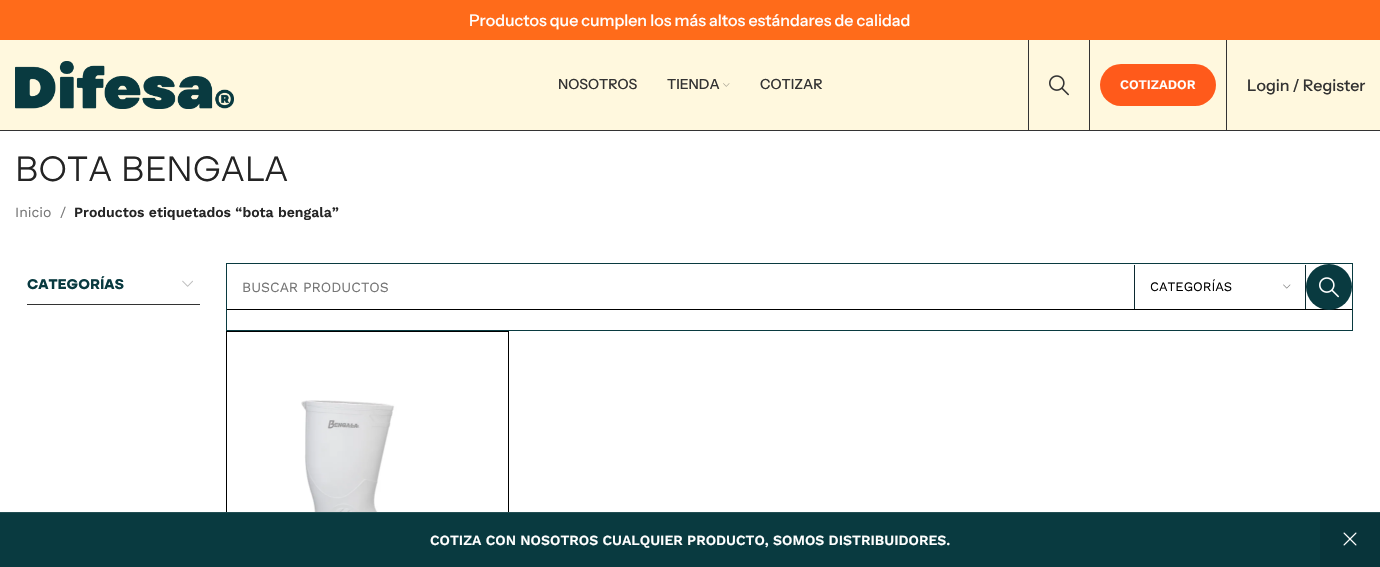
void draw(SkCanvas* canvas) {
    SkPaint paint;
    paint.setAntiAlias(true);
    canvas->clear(0xFFFFFFFF);
    paint.setColor(0xFFFF6B1A);
    canvas->drawRect(SkRect::MakeXYWH(0, 0, 1380, 40), paint);
    SkFont font1(fontMgr->matchFamilyStyle("Instrument Sans", SkFontStyle(500, SkFontStyle::kNormal_Width, SkFontStyle::kUpright_Slant)), 16);
    font1.setSubpixel(true);
    paint.setColor(0xFFFFFFFF);
    canvas->drawString("Productos que cumplen los más altos estándares de calidad", 469, 26, font1, paint);
    paint.setColor(0xFFFFF8DE);
    canvas->drawRect(SkRect::MakeXYWH(0, 40, 1380, 90), paint);
    paint.setColor(0xFF333333);
    canvas->drawRect(SkRect::MakeXYWH(0, 130, 1380, 1), paint);
    canvas->drawImageRect(SkImages::DeferredFromEncodedData(SkData::MakeFromFileName("img1.png")), SkRect::MakeXYWH(15, 61, 219, 48), SkSamplingOptions());
    SkFont font2(fontMgr->matchFamilyStyle("Instrument Sans", SkFontStyle(500, SkFontStyle::kNormal_Width, SkFontStyle::kUpright_Slant)), 14);
    font2.setSubpixel(true);
    canvas->drawString("NOSOTROS", 558, 89, font2, paint);
    canvas->drawString("TIENDA", 667, 89, font2, paint);
    canvas->drawImageRect(SkImages::DeferredFromEncodedData(SkData::MakeFromFileName("img2.png")), SkRect::MakeXYWH(723, 83, 7, 4), SkSamplingOptions());
    canvas->drawString("COTIZAR", 760, 89, font2, paint);
    canvas->drawRect(SkRect::MakeXYWH(1028, 40, 1, 90), paint);
    canvas->drawImageRect(SkImages::DeferredFromEncodedData(SkData::MakeFromFileName("img3.png")), SkRect::MakeXYWH(1049, 75, 20, 21), SkSamplingOptions());
    canvas->drawRect(SkRect::MakeXYWH(1089, 40, 1, 90), paint);
    paint.setColor(0xFFFF5A1B);
    canvas->drawRoundRect(SkRect::MakeXYWH(1100, 64, 116, 42), 21, 21, paint);
    SkFont font3(fontMgr->matchFamilyStyle("Work Sans", SkFontStyle(600, SkFontStyle::kNormal_Width, SkFontStyle::kUpright_Slant)), 13);
    font3.setSubpixel(true);
    paint.setColor(0xFFFFFFFF);
    canvas->drawString("COTIZADOR", 1120, 89, font3, paint);
    paint.setColor(0xFF333333);
    canvas->drawRect(SkRect::MakeXYWH(1226, 40, 1, 90), paint);
    canvas->drawString("Login / Register", 1247, 91, font1, paint);
    SkFont font4(fontMgr->matchFamilyStyle("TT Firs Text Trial", SkFontStyle::Normal()), 35);
    font4.setSubpixel(true);
    paint.setColor(0xFF242424);
    canvas->drawString("BOTA BENGALA", 15, 181, font4, paint);
    SkFont font5(fontMgr->matchFamilyStyle("Work Sans", SkFontStyle::Normal()), 14);
    font5.setSubpixel(true);
    paint.setColor(0xFF767676);
    canvas->drawString("Inicio", 15, 217, font5, paint);
    canvas->drawString("/", 60, 217, font5, paint);
    SkFont font6(fontMgr->matchFamilyStyle("Work Sans", SkFontStyle(600, SkFontStyle::kNormal_Width, SkFontStyle::kUpright_Slant)), 14);
    font6.setSubpixel(true);
    paint.setColor(0xFF242424);
    canvas->drawString("Productos etiquetados “bota bengala”", 74, 217, font6, paint);
    paint.setColor(0xFF333333);
    canvas->drawRect(SkRect::MakeXYWH(27, 304, 173, 1), paint);
    SkFont font7(fontMgr->matchFamilyStyle("TT Firs Text Trial", SkFontStyle::Bold()), 14);
    font7.setSubpixel(true);
    paint.setColor(0xFF093A40);
    canvas->drawString("CATEGORÍAS", 27, 289, font7, paint);
    canvas->drawImageRect(SkImages::DeferredFromEncodedData(SkData::MakeFromFileName("img4.png")), SkRect::MakeXYWH(182, 280, 11, 7), SkSamplingOptions());
    paint.setStyle(SkPaint::kStroke_Style);
    paint.setStrokeWidth(1);
    canvas->drawRect(SkRect::MakeXYWH(226.5f, 263.5f, 1126, 67), paint);
    paint.setStyle(SkPaint::kFill_Style);
    paint.setColor(0xFF000000);
    canvas->drawRect(SkRect::MakeXYWH(227, 309, 1125, 1), paint);
    paint.setColor(0xFF767676);
    canvas->drawString("BUSCAR PRODUCTOS", 242, 292, font5, paint);
    paint.setColor(0xFF0B2930);
    canvas->drawRect(SkRect::MakeXYWH(1305, 265, 1, 44), paint);
    canvas->drawRect(SkRect::MakeXYWH(1134, 265, 1, 44), paint);
    SkFont font8(fontMgr->matchFamilyStyle("Work Sans", SkFontStyle::Normal()), 13);
    font8.setSubpixel(true);
    paint.setColor(0xFF000000);
    canvas->drawString("CATEGORÍAS", 1150, 291, font8, paint);
    canvas->drawImageRect(SkImages::DeferredFromEncodedData(SkData::MakeFromFileName("img5.png")), SkRect::MakeXYWH(1283, 284, 8, 5), SkSamplingOptions());
    paint.setColor(0xFF093A40);
    canvas->drawCircle(1329, 287, 23, paint);
    canvas->drawImageRect(SkImages::DeferredFromEncodedData(SkData::MakeFromFileName("img6.png")), SkRect::MakeXYWH(1319, 277, 20, 21), SkSamplingOptions());
    paint.setColor(0xFF000000);
    canvas->drawRect(SkRect::MakeXYWH(226, 331, 1, 181), paint);
    canvas->drawRect(SkRect::MakeXYWH(227, 331, 282, 1), paint);
    canvas->drawRect(SkRect::MakeXYWH(508, 331, 1, 181), paint);
    canvas->drawImageRect(SkImages::DeferredFromEncodedData(SkData::MakeFromFileName("img7.png")), SkRect::MakeXYWH(301, 400, 136, 112), SkSamplingOptions());
    paint.setColor(0xFF093A40);
    canvas->drawRect(SkRect::MakeXYWH(0, 513, 1320, 54), paint);
    paint.setColor(0xFF224E53);
    canvas->drawRect(SkRect::MakeXYWH(0, 512, 1380, 1), paint);
    paint.setColor(0xFFFFFFFF);
    canvas->drawString("COTIZA CON NOSOTROS CUALQUIER PRODUCTO, SOMOS DISTRIBUIDORES.", 430, 545, font6, paint);
    paint.setColor(0xFF08343A);
    canvas->drawRect(SkRect::MakeXYWH(1320, 513, 60, 54), paint);
    canvas->drawImageRect(SkImages::DeferredFromEncodedData(SkData::MakeFromFileName("img8.png")), SkRect::MakeXYWH(1343, 532, 14, 14), SkSamplingOptions());
}
